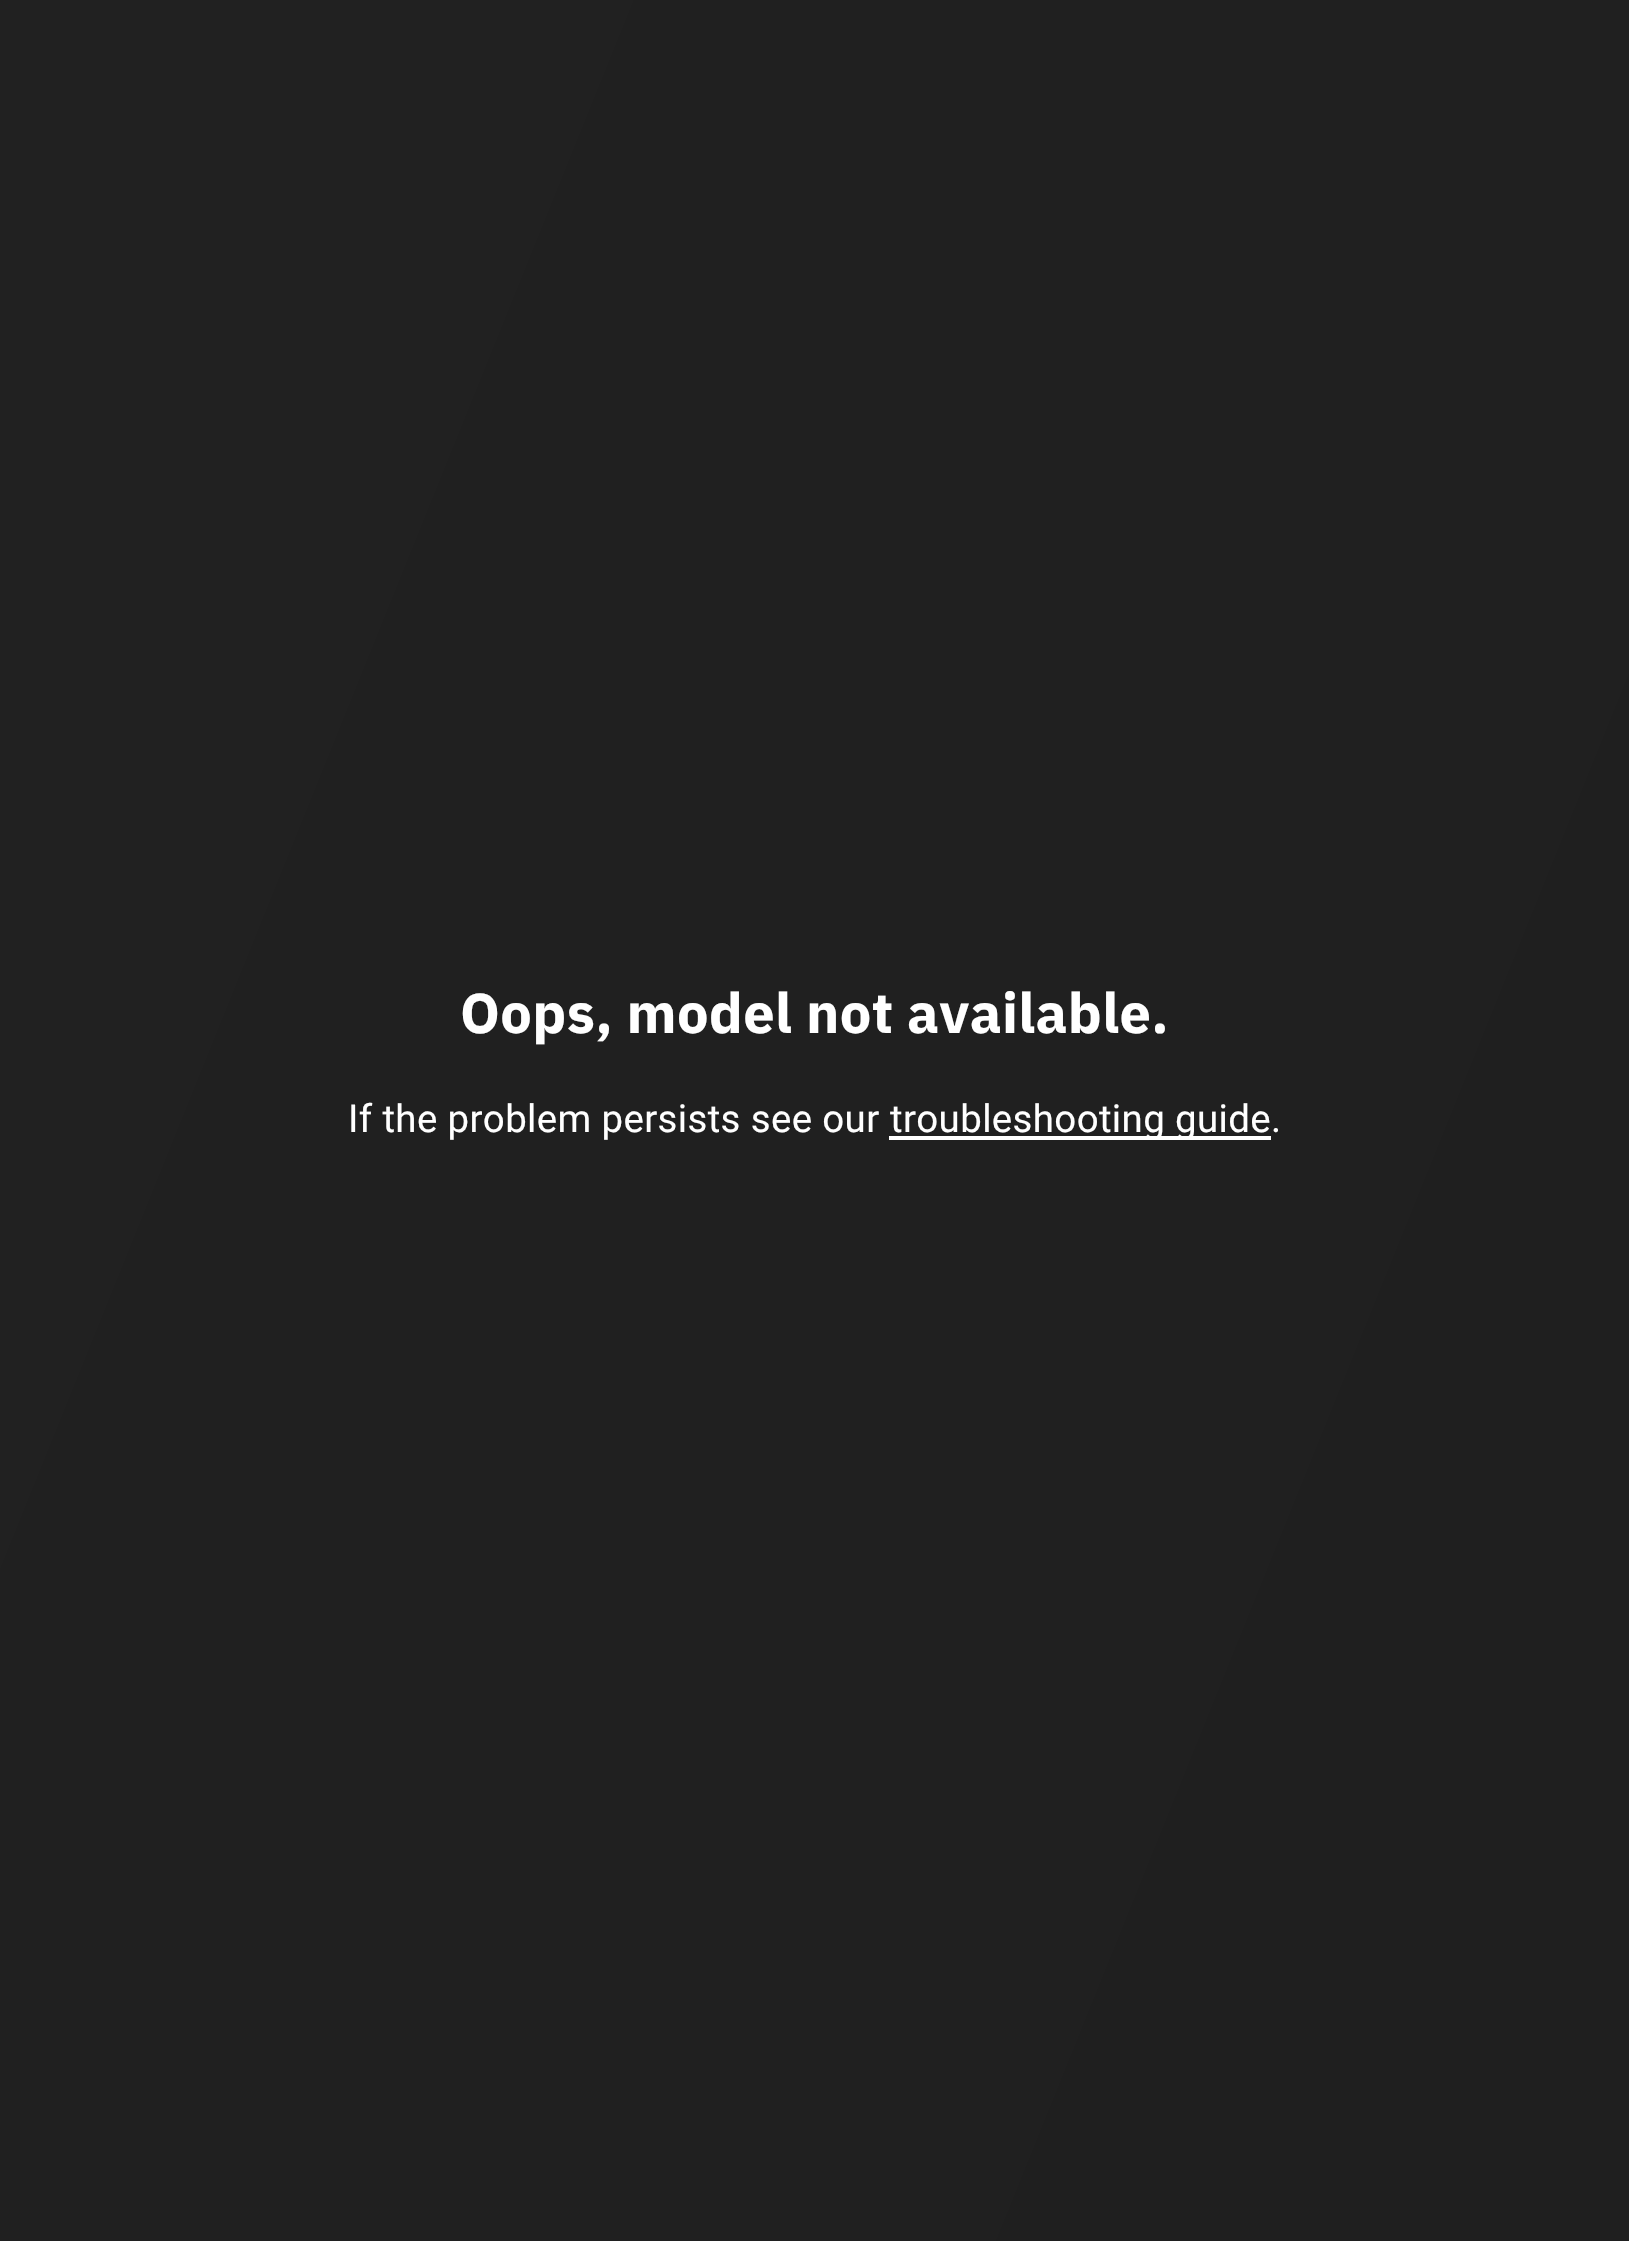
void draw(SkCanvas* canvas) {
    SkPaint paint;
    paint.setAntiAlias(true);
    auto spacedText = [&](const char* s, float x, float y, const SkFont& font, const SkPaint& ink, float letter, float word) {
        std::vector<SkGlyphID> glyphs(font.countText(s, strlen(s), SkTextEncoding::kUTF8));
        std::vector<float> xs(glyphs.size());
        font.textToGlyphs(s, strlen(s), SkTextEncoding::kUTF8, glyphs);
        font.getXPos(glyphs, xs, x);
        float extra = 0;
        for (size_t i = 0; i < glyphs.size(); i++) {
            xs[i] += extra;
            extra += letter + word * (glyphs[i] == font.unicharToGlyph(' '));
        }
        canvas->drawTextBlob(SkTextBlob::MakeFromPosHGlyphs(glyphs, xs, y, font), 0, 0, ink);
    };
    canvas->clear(0xFFFFFFFF);
    {
        const SkColor colors[] = {0xFF212121, 0xFF1F1F1F};
        const float stops[] = {0, 1};
        const SkPoint ends[] = {{-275, 681}, {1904, 1561}};
        paint.setShader(SkGradientShader::MakeLinear(ends, colors, stops, 2, SkTileMode::kClamp));
        paint.setAlpha(255);
    }
    canvas->drawRect(SkRect::MakeXYWH(0, 0, 1629, 2241), paint);
    SkFont font1(fontMgr->matchFamilyStyle("IBM Plex Sans", SkFontStyle::Bold()), 56);
    font1.setSubpixel(true);
    paint.setShader(nullptr);
    paint.setColor(0xFFFFFFFF);
    spacedText("Oops, model not available.", 460, 1033, font1, paint, 0.35f, 0);
    SkFont font2(fontMgr->matchFamilyStyle("Roboto", SkFontStyle::Normal()), 38.5f);
    font2.setSubpixel(true);
    spacedText("If the problem persists see our", 348, 1132, font2, paint, 0.35f, 0);
    canvas->drawRect(SkRect::MakeXYWH(889, 1136, 382, 4), paint);
    spacedText("troubleshooting guide.", 890, 1132, font2, paint, 0.35f, 0);
}
